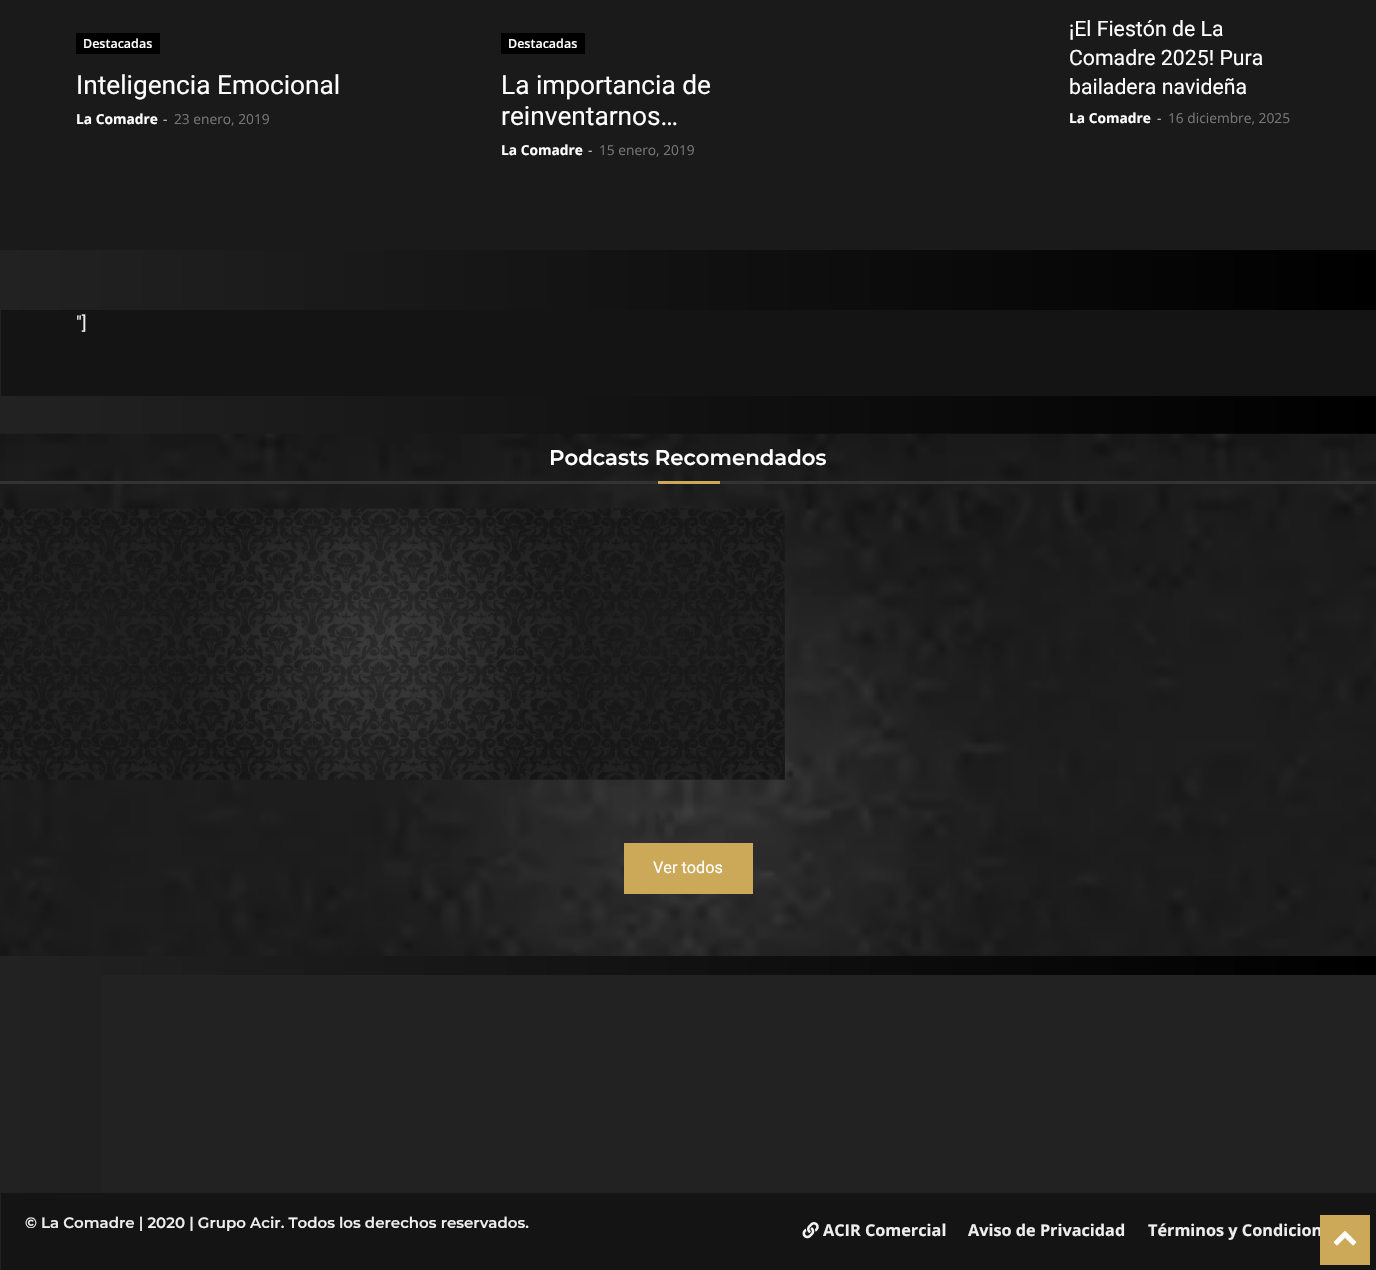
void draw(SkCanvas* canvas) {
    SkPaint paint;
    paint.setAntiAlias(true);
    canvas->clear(0xFF1A1A1A);
    paint.setColor(0xFF000000);
    canvas->drawRect(SkRect::MakeXYWH(76, 33, 84, 21), paint);
    SkFont font1(fontMgr->matchFamilyStyle("Open Sans", SkFontStyle(600, SkFontStyle::kNormal_Width, SkFontStyle::kUpright_Slant)), 12.5f);
    font1.setSubpixel(true);
    paint.setColor(0xFFFFFFFF);
    canvas->drawString("Destacadas", 83, 48, font1, paint);
    SkFont font2(fontMgr->matchFamilyStyle("Roboto", SkFontStyle::Normal()), 26.25f);
    font2.setSubpixel(true);
    canvas->drawString("Inteligencia Emocional", 76, 94, font2, paint);
    SkFont font3(fontMgr->matchFamilyStyle("Open Sans", SkFontStyle::Bold()), 13.75f);
    font3.setSubpixel(true);
    canvas->drawString("La Comadre", 76, 124, font3, paint);
    SkFont font4(fontMgr->matchFamilyStyle("Open Sans", SkFontStyle::Normal()), 13.75f);
    font4.setSubpixel(true);
    paint.setColor(0xFFCCCCCC);
    canvas->drawString("-", 163, 124, font4, paint);
    paint.setColor(0xFF767676);
    canvas->drawString("23 enero, 2019", 174, 124, font4, paint);
    paint.setColor(0xFF000000);
    canvas->drawRect(SkRect::MakeXYWH(501, 33, 84, 21), paint);
    paint.setColor(0xFFFFFFFF);
    canvas->drawString("Destacadas", 508, 48, font1, paint);
    canvas->drawString("La importancia de", 501, 94, font2, paint);
    canvas->drawString("reinventarnos…", 501, 125, font2, paint);
    canvas->drawString("La Comadre", 501, 155, font3, paint);
    paint.setColor(0xFFCCCCCC);
    canvas->drawString("-", 588, 155, font4, paint);
    paint.setColor(0xFF767676);
    canvas->drawString("15 enero, 2019", 599, 155, font4, paint);
    SkFont font5(fontMgr->matchFamilyStyle("Roboto", SkFontStyle::Normal()), 21.25f);
    font5.setSubpixel(true);
    paint.setColor(0xFFFFFFFF);
    canvas->drawString("¡El Fiestón de La", 1069, 36, font5, paint);
    canvas->drawString("Comadre 2025! Pura", 1069, 65, font5, paint);
    canvas->drawString("bailadera navideña", 1069, 94, font5, paint);
    canvas->drawString("La Comadre", 1069, 123, font3, paint);
    paint.setColor(0xFFCCCCCC);
    canvas->drawString("-", 1157, 123, font4, paint);
    paint.setColor(0xFF767676);
    canvas->drawString("16 diciembre, 2025", 1168, 123, font4, paint);
    {
        const SkColor colors[] = {0xFF000000, 0xFF222222};
        const float stops[] = {0, 1};
        const SkPoint ends[] = {{1376, 760}, {0, 760}};
        paint.setShader(SkGradientShader::MakeLinear(ends, colors, stops, 2, SkTileMode::kClamp));
        paint.setAlpha(255);
    }
    canvas->drawRect(SkRect::MakeXYWH(0, 250, 1376, 1020), paint);
    paint.setShader(nullptr);
    paint.setColor(0xFF141414);
    canvas->drawRect(SkRect::MakeXYWH(1, 310, 1375, 86), paint);
    SkFont font6(fontMgr->matchFamilyStyle("Roboto", SkFontStyle::Normal()), 18);
    font6.setSubpixel(true);
    paint.setColor(0xFFEEEEEE);
    canvas->drawString("\"]", 76, 329, font6, paint);
    canvas->drawImageRect(SkImages::DeferredFromEncodedData(SkData::MakeFromFileName("img1.png")), SkRect::MakeXYWH(0, 433, 1376, 523), SkSamplingOptions());
    SkFont font7(fontMgr->matchFamilyStyle("Montserrat", SkFontStyle(600, SkFontStyle::kNormal_Width, SkFontStyle::kUpright_Slant)), 21.25f);
    font7.setSubpixel(true);
    paint.setColor(0xFFFFFFFF);
    canvas->drawString("Podcasts Recomendados", 549, 465, font7, paint);
    paint.setColor(0xFF333333);
    canvas->drawRect(SkRect::MakeXYWH(0, 481, 1376, 3), paint);
    paint.setColor(0xFFCCA959);
    canvas->drawRect(SkRect::MakeXYWH(658, 481, 62, 3), paint);
    canvas->drawImageRect(SkImages::DeferredFromEncodedData(SkData::MakeFromFileName("img2.png")), SkRect::MakeXYWH(0, 508, 785, 272), SkSamplingOptions());
    canvas->drawRect(SkRect::MakeXYWH(624, 843, 129, 51), paint);
    SkFont font8(fontMgr->matchFamilyStyle("Roboto", SkFontStyle::Normal()), 16.25f);
    font8.setSubpixel(true);
    paint.setColor(0xFFFFFFFF);
    canvas->drawString("Ver todos", 653, 873, font8, paint);
    paint.setColor(0xFF222222);
    canvas->drawRect(SkRect::MakeXYWH(101, 975, 1275, 218), paint);
    paint.setColor(0xFF141414);
    canvas->drawRect(SkRect::MakeXYWH(1, 1193, 1375, 77), paint);
    SkFont font9(fontMgr->matchFamilyStyle("Montserrat", SkFontStyle(600, SkFontStyle::kNormal_Width, SkFontStyle::kUpright_Slant)), 15);
    font9.setSubpixel(true);
    paint.setColor(0xFFEEEEEE);
    canvas->drawString("© La Comadre | 2020 | Grupo Acir. Todos los derechos reservados.", 25, 1228, font9, paint);
    canvas->drawImageRect(SkImages::DeferredFromEncodedData(SkData::MakeFromFileName("img3.png")), SkRect::MakeXYWH(802, 1222, 17, 17), SkSamplingOptions());
    SkFont font10(fontMgr->matchFamilyStyle("Open Sans", SkFontStyle::Bold()), 16.25f);
    font10.setSubpixel(true);
    canvas->drawString("ACIR Comercial", 823, 1236, font10, paint);
    canvas->drawString("Aviso de Privacidad", 968, 1236, font10, paint);
    canvas->drawString("Términos y Condicion", 1148, 1236, font10, paint);
    paint.setColor(0xFFCCA959);
    canvas->drawRect(SkRect::MakeXYWH(1320, 1215, 50, 50), paint);
    canvas->drawImageRect(SkImages::DeferredFromEncodedData(SkData::MakeFromFileName("img4.png")), SkRect::MakeXYWH(1333, 1231, 24, 15), SkSamplingOptions());
}
